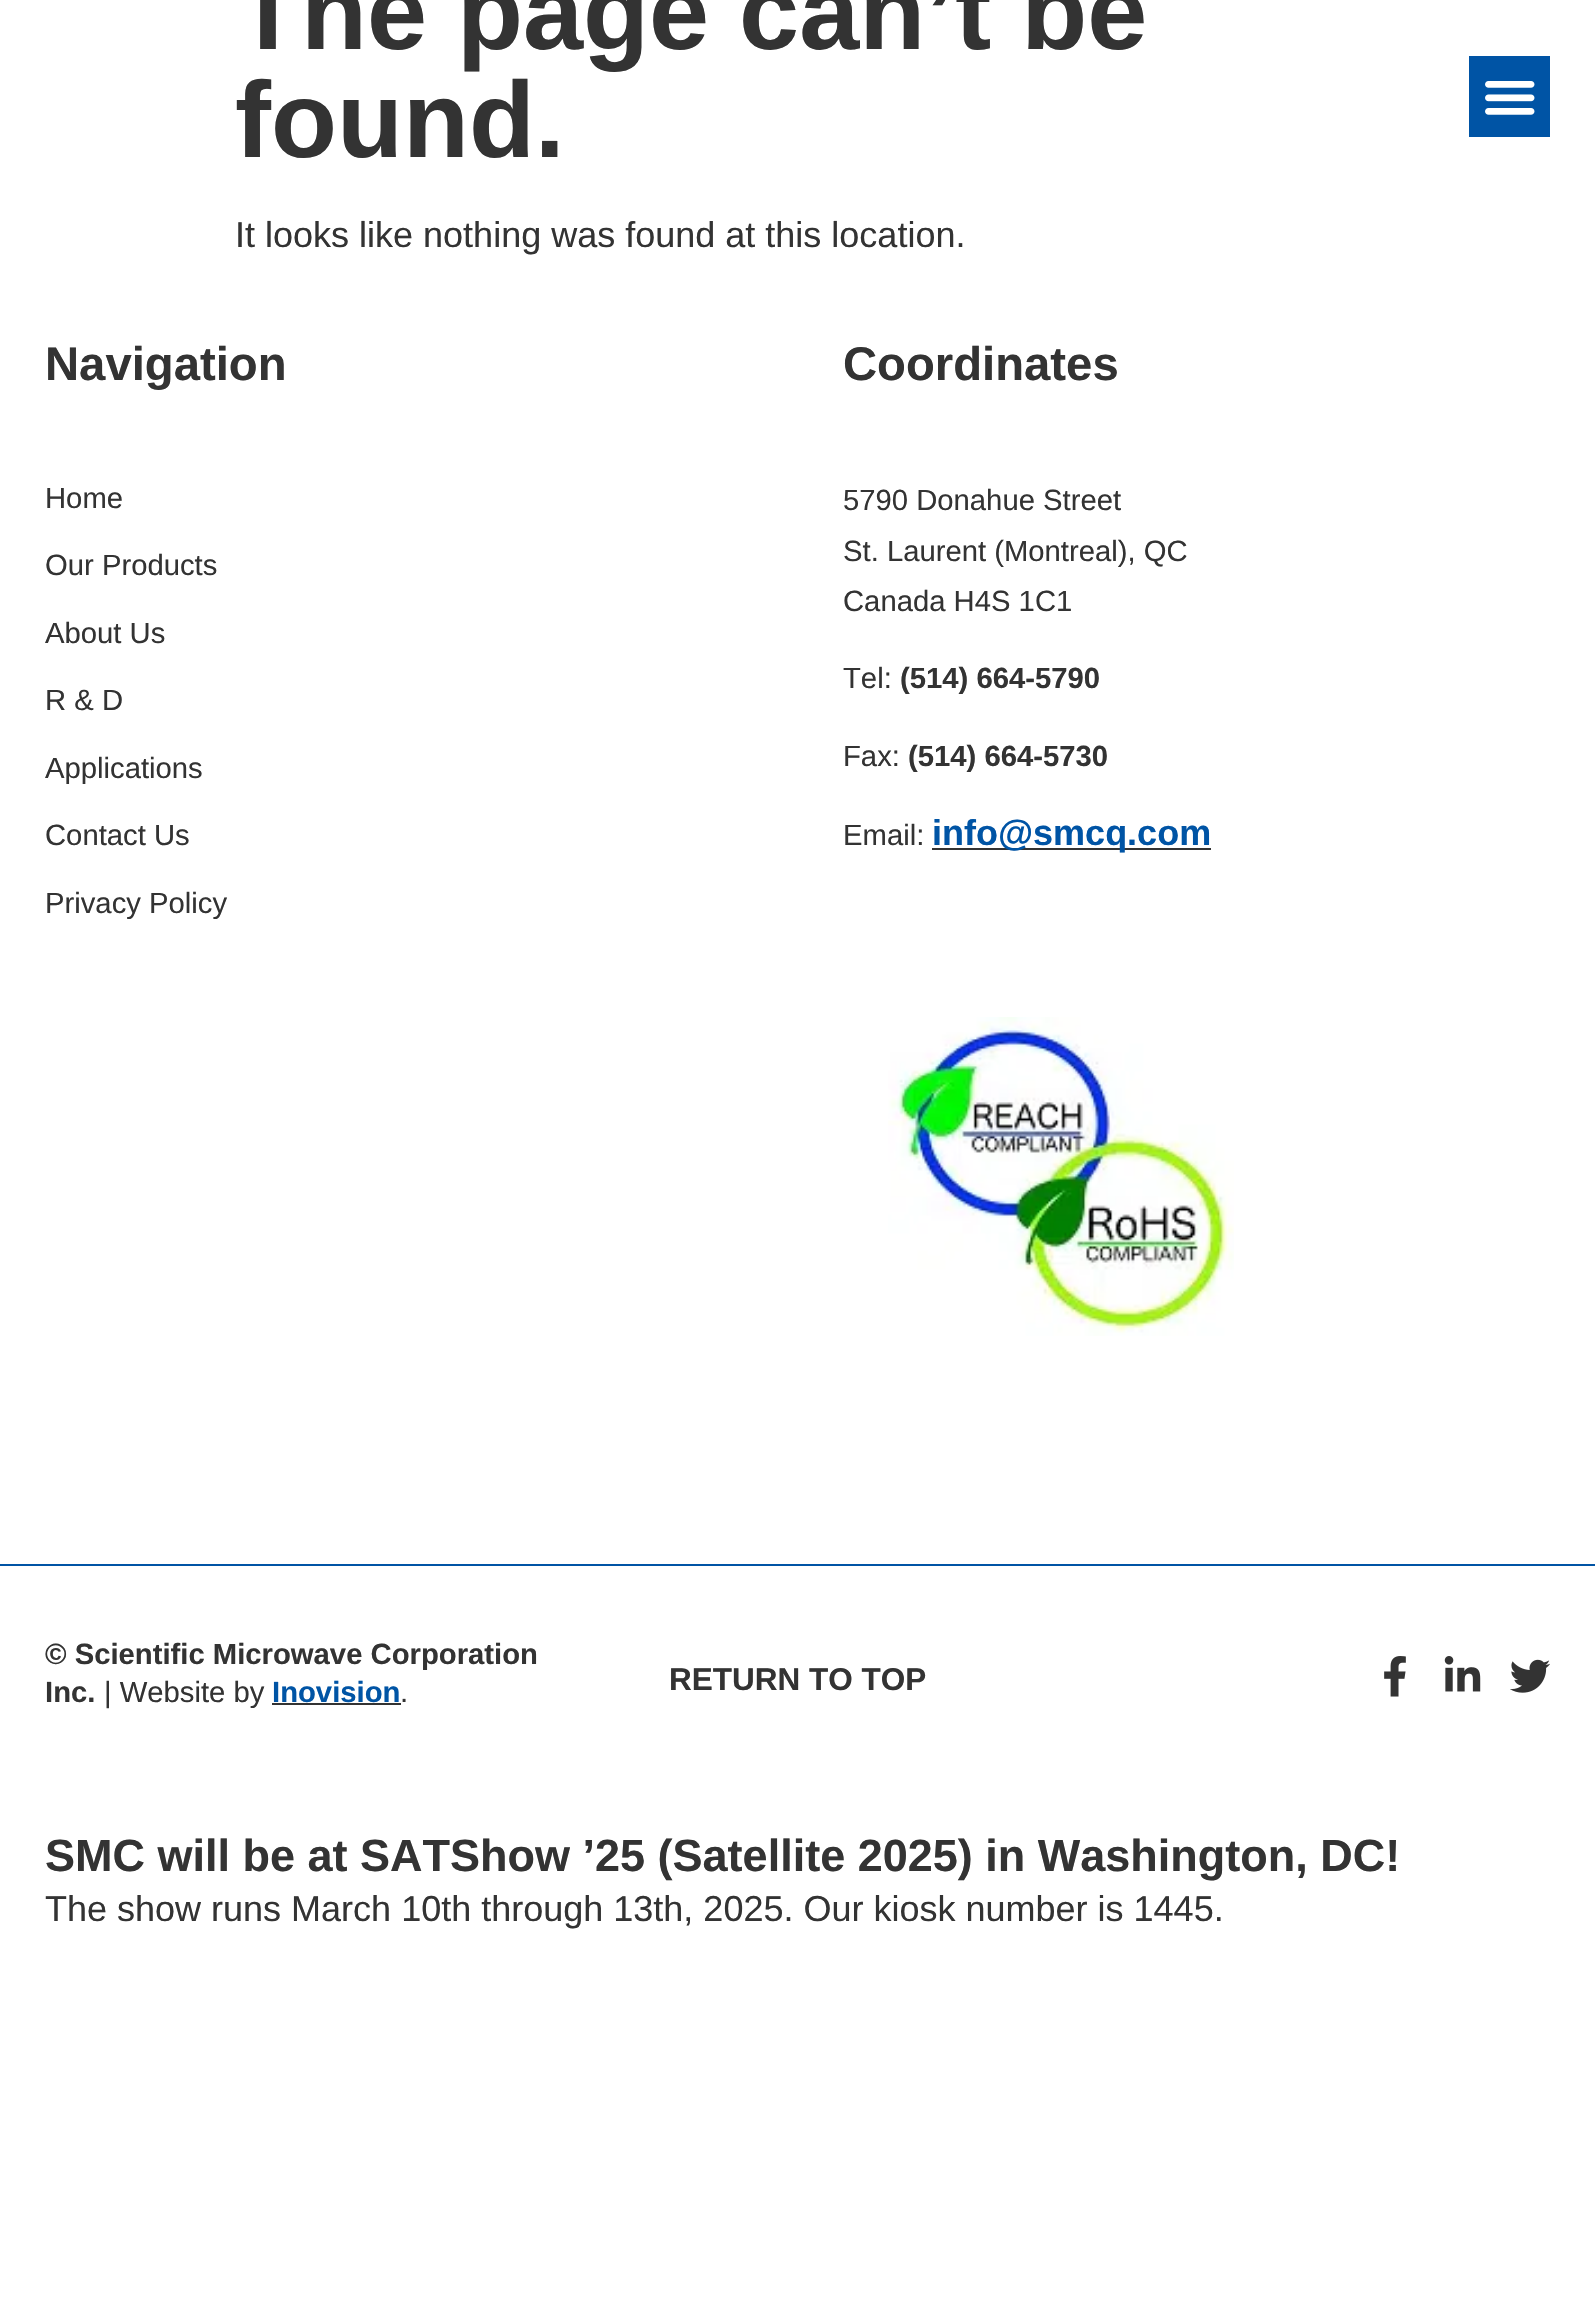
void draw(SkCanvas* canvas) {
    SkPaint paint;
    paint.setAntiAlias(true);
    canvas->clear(0xFFFFFFFF);
    SkFont font1(fontMgr->matchFamilyStyle("Liberation Sans", SkFontStyle::Bold()), 108);
    font1.setSubpixel(true);
    paint.setColor(0xFF333333);
    canvas->drawString("The page can’t be", 235, 49, font1, paint);
    canvas->drawString("found.", 235, 157, font1, paint);
    SkFont font2(fontMgr->matchFamilyStyle("Liberation Sans", SkFontStyle::Normal()), 36);
    font2.setSubpixel(true);
    canvas->drawString("It looks like nothing was found at this location.", 235, 247, font2, paint);
    paint.setColor(0xFF0054A5);
    canvas->drawRect(SkRect::MakeXYWH(1469, 56, 81, 81), paint);
    canvas->drawImageRect(SkImages::DeferredFromEncodedData(SkData::MakeFromFileName("img1.png")), SkRect::MakeXYWH(1485, 81, 50, 34), SkSamplingOptions());
    SkFont font3(fontMgr->matchFamilyStyle("Liberation Sans", SkFontStyle::Bold()), 47.25f);
    font3.setSubpixel(true);
    paint.setColor(0xFF333333);
    canvas->drawString("Navigation", 45, 380, font3, paint);
    SkFont font4(fontMgr->matchFamilyStyle("Liberation Sans", SkFontStyle::Normal()), 29.25f);
    font4.setSubpixel(true);
    canvas->drawString("Home", 45, 508, font4, paint);
    canvas->drawString("Our Products", 45, 575, font4, paint);
    canvas->drawString("About Us", 45, 643, font4, paint);
    canvas->drawString("R & D", 45, 710, font4, paint);
    canvas->drawString("Applications", 45, 778, font4, paint);
    canvas->drawString("Contact Us", 45, 845, font4, paint);
    canvas->drawString("Privacy Policy", 45, 913, font4, paint);
    canvas->drawString("Coordinates", 843, 380, font3, paint);
    canvas->drawString("5790 Donahue Street", 843, 510, font4, paint);
    canvas->drawString("St. Laurent (Montreal), QC", 843, 561, font4, paint);
    canvas->drawString("Canada H4S 1C1", 843, 611, font4, paint);
    canvas->drawString("Tel:", 843, 688, font4, paint);
    SkFont font5(fontMgr->matchFamilyStyle("Liberation Sans", SkFontStyle::Bold()), 29.25f);
    font5.setSubpixel(true);
    canvas->drawString("(514) 664-5790", 900, 688, font5, paint);
    canvas->drawString("Fax:", 843, 766, font4, paint);
    canvas->drawString("(514) 664-5730", 908, 766, font5, paint);
    canvas->drawString("Email:", 843, 845, font4, paint);
    canvas->drawRect(SkRect::MakeXYWH(932, 848, 279, 2), paint);
    SkFont font6(fontMgr->matchFamilyStyle("Liberation Sans", SkFontStyle::Bold()), 36);
    font6.setSubpixel(true);
    paint.setColor(0xFF0054A5);
    canvas->drawString("info@smcq.com", 932, 845, font6, paint);
    canvas->drawImageRect(SkImages::DeferredFromEncodedData(SkData::MakeFromFileName("img2.png")), SkRect::MakeXYWH(888, 1017, 346, 319), SkSamplingOptions());
    canvas->drawRect(SkRect::MakeXYWH(0, 1564, 1595, 2), paint);
    paint.setColor(0xFF333333);
    canvas->drawString("© Scientific Microwave Corporation", 45, 1664, font5, paint);
    canvas->drawString("Inc.", 45, 1702, font5, paint);
    canvas->drawString("| Website by", 104, 1702, font4, paint);
    paint.setColor(0xFF0054A5);
    canvas->drawString("Inovision", 272, 1702, font5, paint);
    paint.setColor(0xFF333333);
    canvas->drawRect(SkRect::MakeXYWH(272, 1703, 129, 2), paint);
    canvas->drawString(".", 400, 1702, font4, paint);
    SkFont font7(fontMgr->matchFamilyStyle("Liberation Sans", SkFontStyle::Bold()), 31.5f);
    font7.setSubpixel(true);
    canvas->drawString("RETURN TO TOP", 669, 1690, font7, paint);
    canvas->drawImageRect(SkImages::DeferredFromEncodedData(SkData::MakeFromFileName("img3.png")), SkRect::MakeXYWH(1384, 1656, 22, 41), SkSamplingOptions());
    canvas->drawImageRect(SkImages::DeferredFromEncodedData(SkData::MakeFromFileName("img4.png")), SkRect::MakeXYWH(1444, 1656, 37, 36), SkSamplingOptions());
    canvas->drawImageRect(SkImages::DeferredFromEncodedData(SkData::MakeFromFileName("img5.png")), SkRect::MakeXYWH(1510, 1659, 40, 34), SkSamplingOptions());
    SkFont font8(fontMgr->matchFamilyStyle("Liberation Sans", SkFontStyle::Bold()), 45);
    font8.setSubpixel(true);
    canvas->drawString("SMC will be at SATShow ’25 (Satellite 2025) in Washington, DC!", 45, 1871, font8, paint);
    canvas->drawString("The show runs March 10th through 13th, 2025. Our kiosk number is 1445.", 45, 1921, font2, paint);
}
